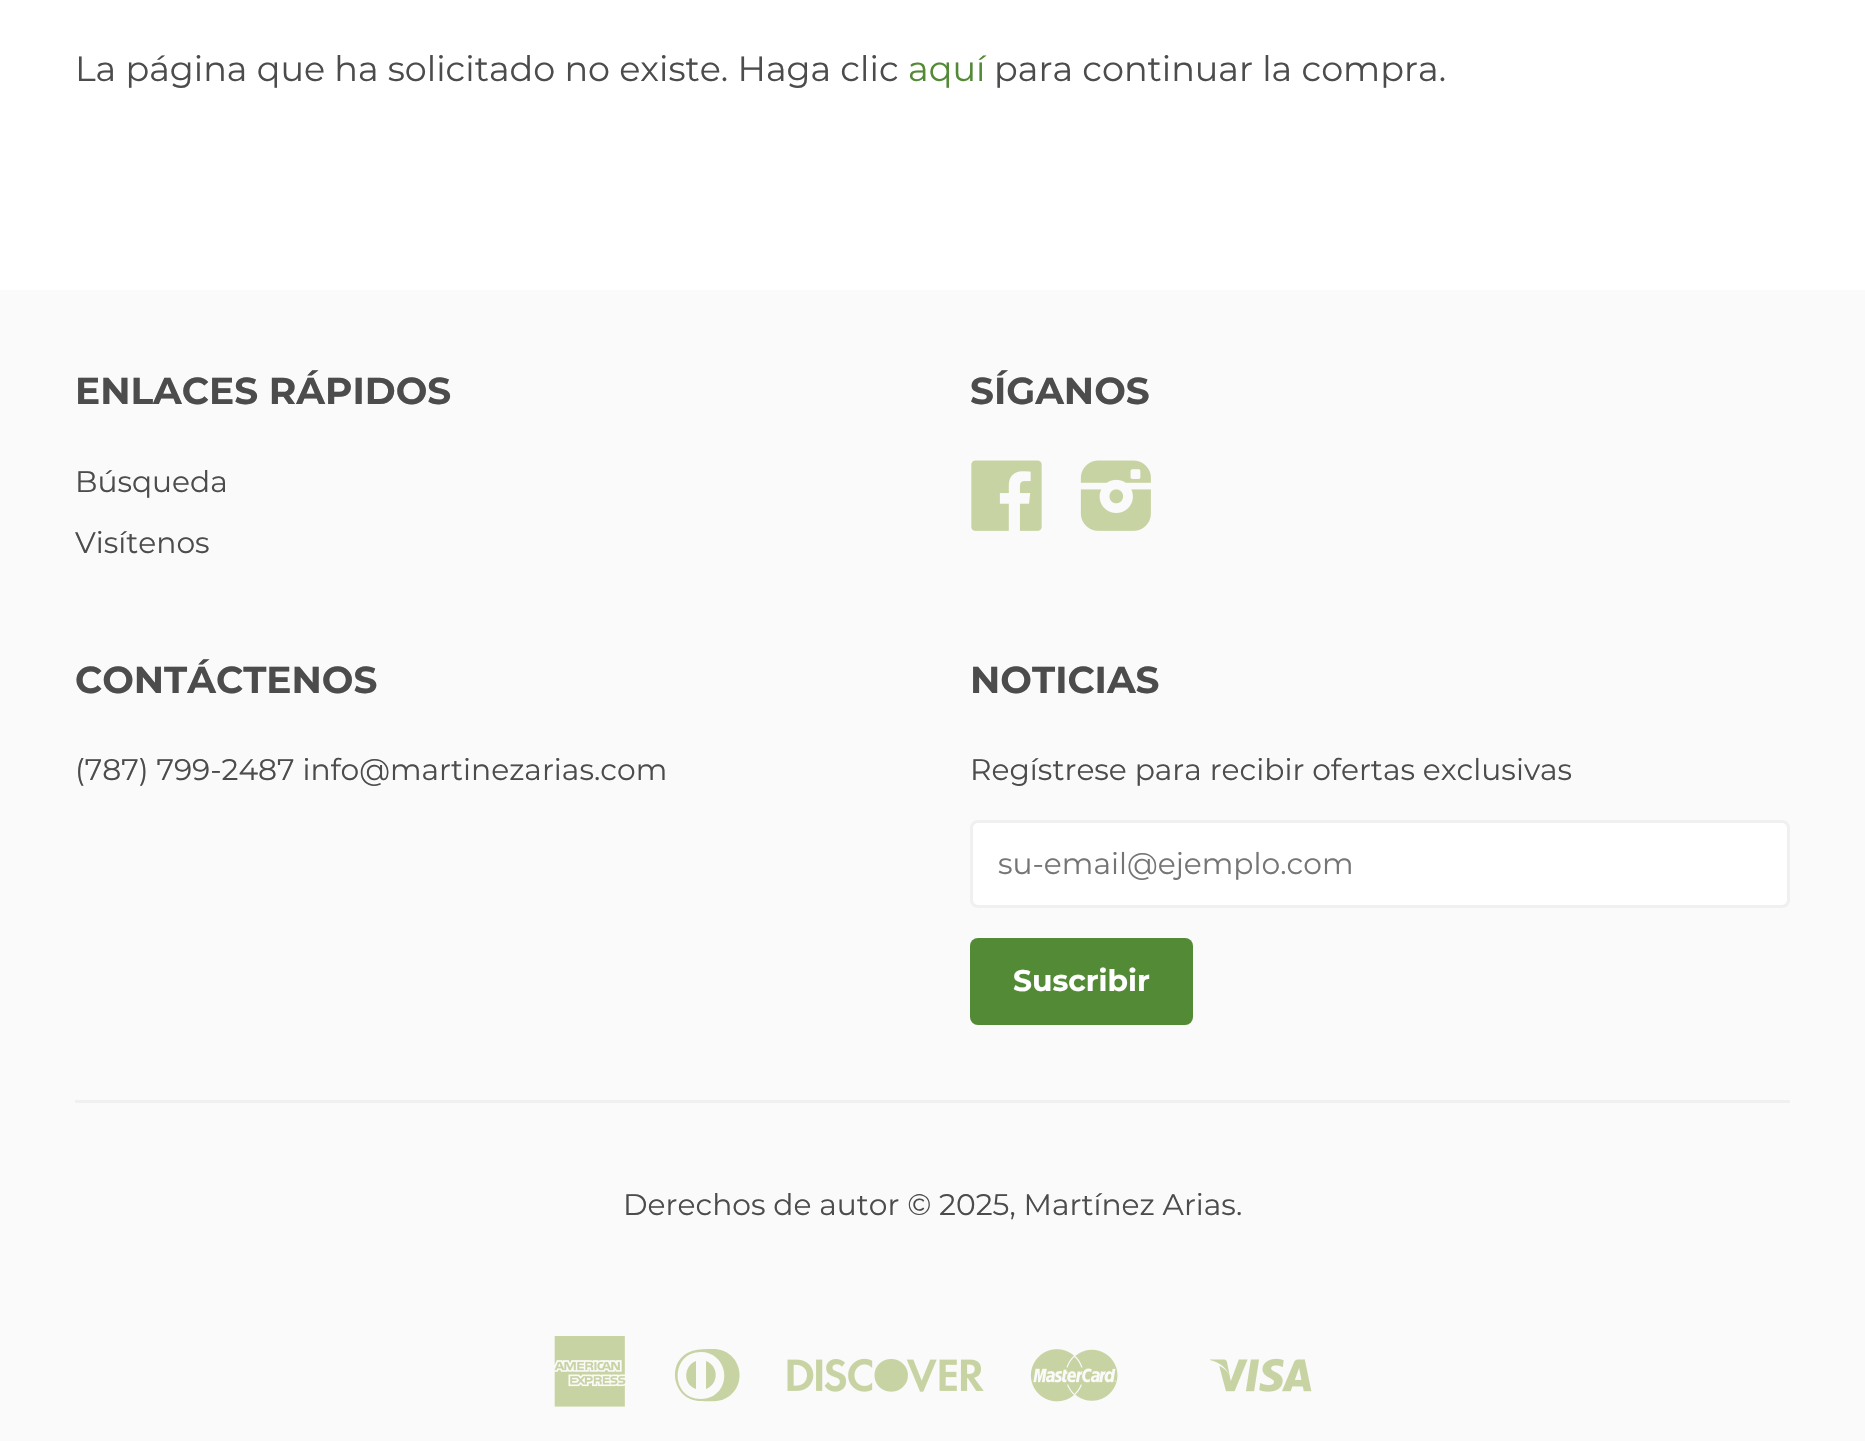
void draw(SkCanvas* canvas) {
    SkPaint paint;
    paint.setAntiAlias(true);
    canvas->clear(0xFFFFFFFF);
    SkFont font1(fontMgr->matchFamilyStyle("Montserrat", SkFontStyle::Normal()), 35);
    font1.setSubpixel(true);
    paint.setColor(0xFF4C4C4C);
    canvas->drawString("La página que ha solicitado no existe. Haga clic", 75, 81, font1, paint);
    paint.setColor(0xFF538A35);
    canvas->drawString("aquí", 908, 81, font1, paint);
    paint.setColor(0xFF4C4C4C);
    canvas->drawString("para continuar la compra.", 994, 81, font1, paint);
    paint.setColor(0xFFFAFAFA);
    canvas->drawRect(SkRect::MakeXYWH(0, 290, 1865, 1151), paint);
    SkFont font2(fontMgr->matchFamilyStyle("Montserrat", SkFontStyle::Bold()), 37.5f);
    font2.setSubpixel(true);
    paint.setColor(0xFF4C4C4C);
    canvas->drawString("ENLACES RÁPIDOS", 75, 404, font2, paint);
    SkFont font3(fontMgr->matchFamilyStyle("Montserrat", SkFontStyle::Normal()), 29.75f);
    font3.setSubpixel(true);
    canvas->drawString("Búsqueda", 75, 492, font3, paint);
    canvas->drawString("Visítenos", 75, 553, font3, paint);
    canvas->drawString("SÍGANOS", 970, 404, font2, paint);
    canvas->drawImageRect(SkImages::DeferredFromEncodedData(SkData::MakeFromFileName("img1.png")), SkRect::MakeXYWH(971, 460, 71, 71), SkSamplingOptions());
    canvas->drawImageRect(SkImages::DeferredFromEncodedData(SkData::MakeFromFileName("img2.png")), SkRect::MakeXYWH(1080, 460, 71, 71), SkSamplingOptions());
    canvas->drawString("CONTÁCTENOS", 75, 693, font2, paint);
    canvas->drawString("(787) 799-2487 info@martinezarias.com", 75, 780, font3, paint);
    canvas->drawString("NOTICIAS", 970, 693, font2, paint);
    canvas->drawString("Regístrese para recibir ofertas exclusivas", 970, 780, font3, paint);
    paint.setColor(0xFFFFFFFF);
    canvas->drawRoundRect(SkRect::MakeXYWH(971.5f, 821.5f, 817, 85), 6.5f, 6.5f, paint);
    paint.setStyle(SkPaint::kStroke_Style);
    paint.setStrokeWidth(3);
    paint.setColor(0xFFF0F0F0);
    canvas->drawRoundRect(SkRect::MakeXYWH(971.5f, 821.5f, 817, 85), 6.5f, 6.5f, paint);
    paint.setStyle(SkPaint::kFill_Style);
    paint.setColor(0xFF757575);
    canvas->drawString("su-email@ejemplo.com", 998, 874, font3, paint);
    paint.setColor(0xFF538A35);
    canvas->drawRoundRect(SkRect::MakeXYWH(970, 938, 223, 87), 8, 8, paint);
    SkFont font4(fontMgr->matchFamilyStyle("Montserrat", SkFontStyle::Bold()), 29.75f);
    font4.setSubpixel(true);
    paint.setColor(0xFFFFFFFF);
    canvas->drawString("Suscribir", 1013, 991, font4, paint);
    paint.setColor(0xFFF0F0F0);
    canvas->drawRect(SkRect::MakeXYWH(75, 1100, 1715, 3), paint);
    paint.setColor(0xFF4C4C4C);
    canvas->drawString("Derechos de autor © 2025, Martínez Arias.", 623, 1215, font3, paint);
    canvas->drawImageRect(SkImages::DeferredFromEncodedData(SkData::MakeFromFileName("img3.png")), SkRect::MakeXYWH(554, 1336, 72, 71), SkSamplingOptions());
    paint.setColor(0xFFC8D3A3);
    canvas->drawPath(SkPathBuilder().moveTo(713, 1349).cubicTo(743, 1349, 750, 1390, 722, 1400).cubicTo(715, 1402, 708, 1401, 701, 1401).cubicTo(672, 1401, 665, 1360, 692, 1351).cubicTo(699, 1349, 706, 1349, 713, 1349).close().moveTo(701, 1399).cubicTo(705, 1399, 709, 1398, 713, 1396).cubicTo(733, 1384, 725, 1352, 701, 1352).cubicTo(670, 1352, 670, 1399, 701, 1399).close().moveTo(696, 1389).cubicTo(683, 1385, 683, 1366, 696, 1361).close().moveTo(706, 1361).cubicTo(719, 1366, 719, 1384, 706, 1389).close().detach(), paint);
    canvas->drawImageRect(SkImages::DeferredFromEncodedData(SkData::MakeFromFileName("img4.png")), SkRect::MakeXYWH(787, 1358, 197, 34), SkSamplingOptions());
    canvas->drawImageRect(SkImages::DeferredFromEncodedData(SkData::MakeFromFileName("img5.png")), SkRect::MakeXYWH(1030, 1349, 88, 53), SkSamplingOptions());
    canvas->drawImageRect(SkImages::DeferredFromEncodedData(SkData::MakeFromFileName("img6.png")), SkRect::MakeXYWH(1210, 1358, 102, 34), SkSamplingOptions());
}
